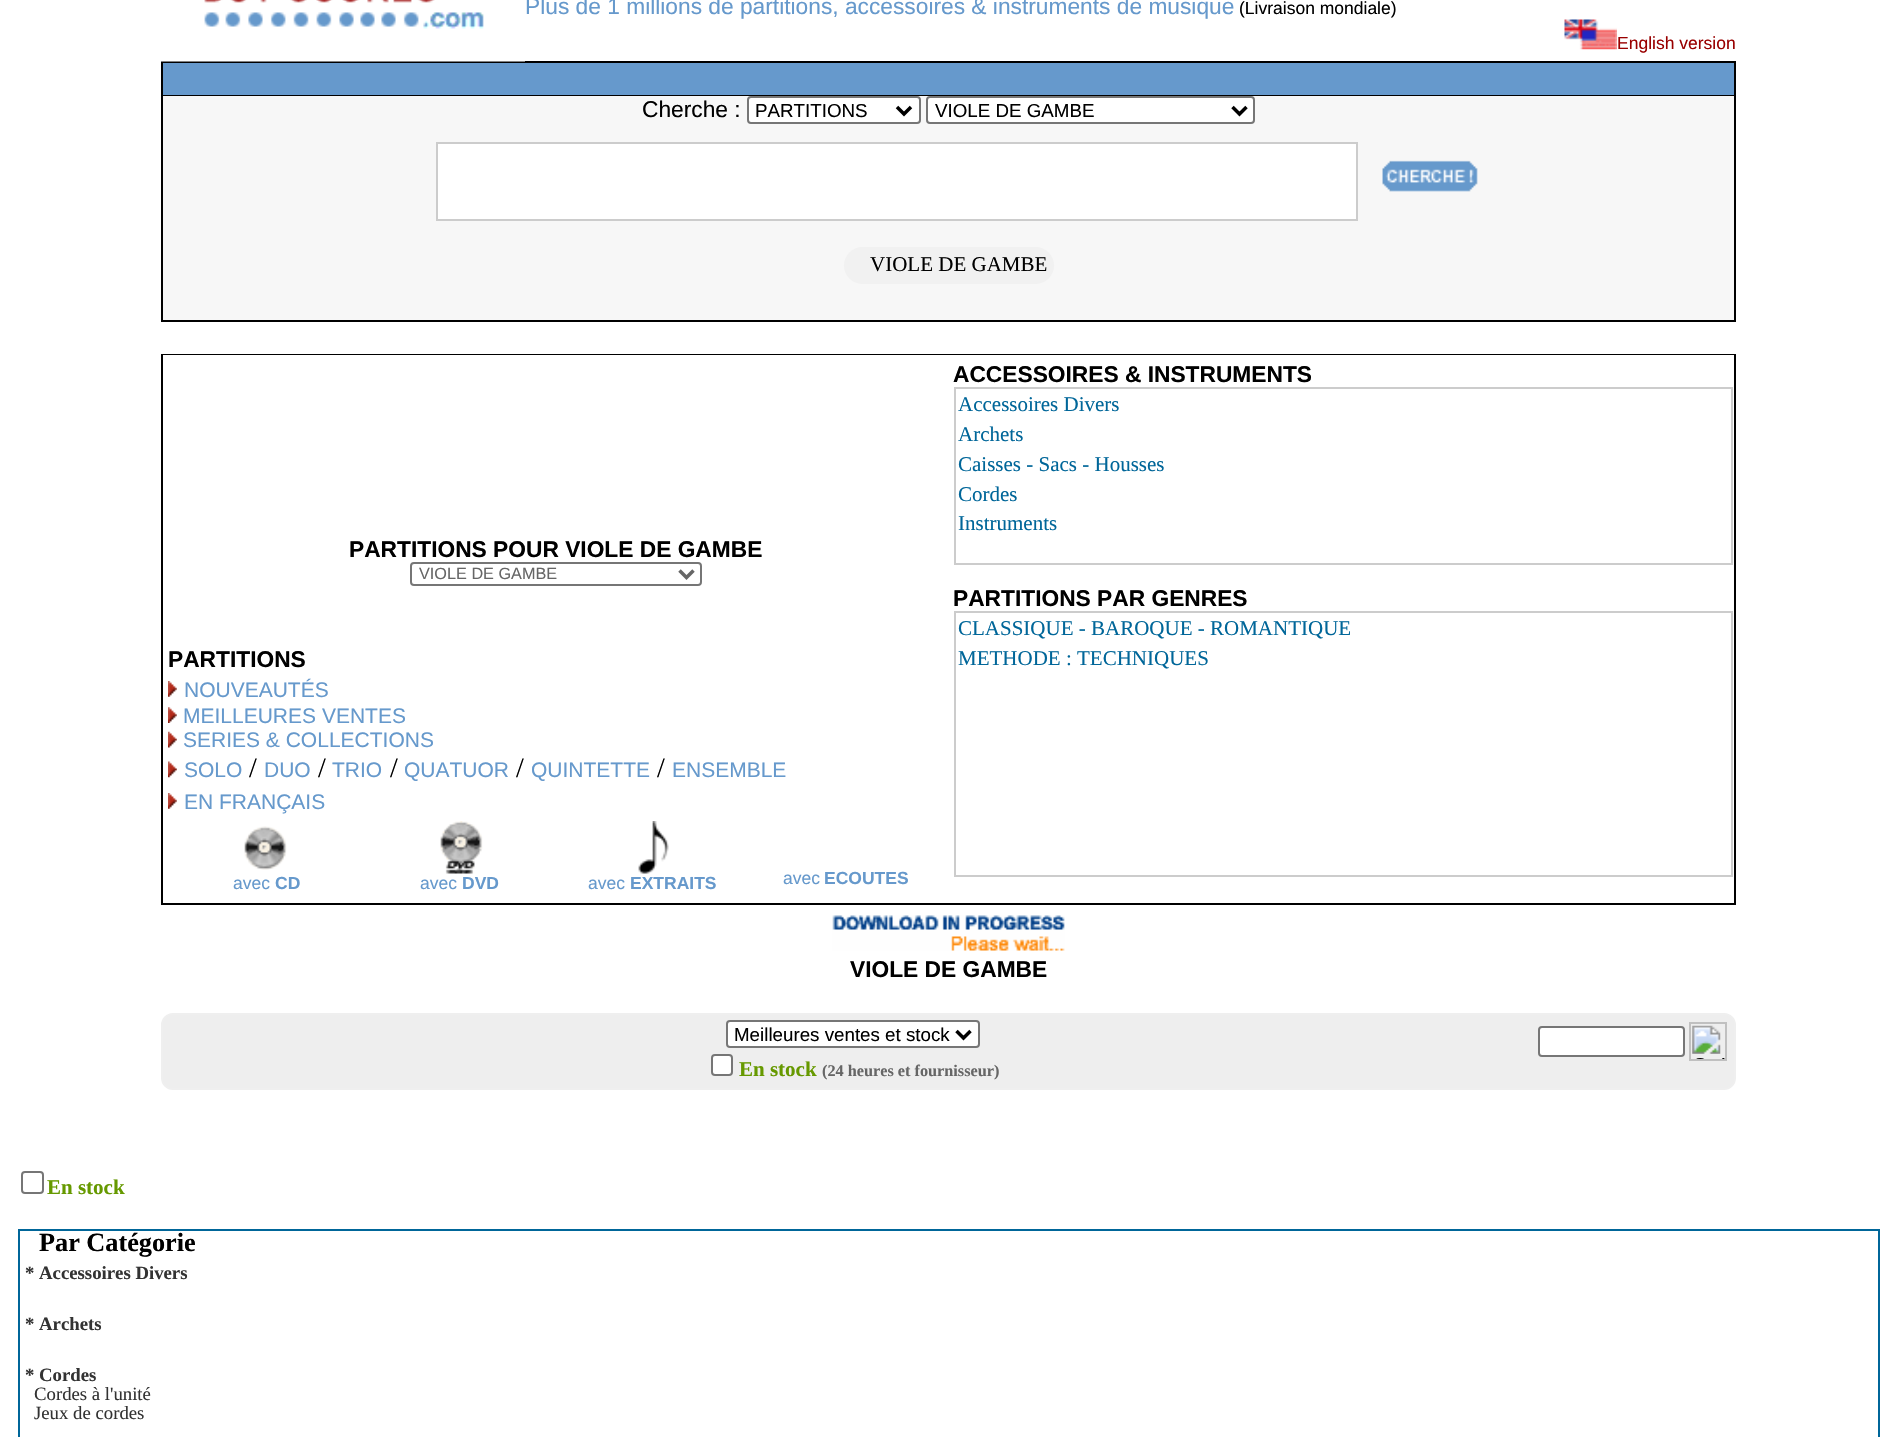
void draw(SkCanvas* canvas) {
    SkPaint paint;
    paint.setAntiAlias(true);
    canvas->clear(0xFFFFFFFF);
    paint.setColor(0xFF000000);
    canvas->drawRect(SkRect::MakeXYWH(161, 61, 1575, 261), paint);
    canvas->drawImageRect(SkImages::DeferredFromEncodedData(SkData::MakeFromFileName("img1.png")), SkRect::MakeXYWH(161, 0, 364, 62), SkSamplingOptions());
    SkFont font1(fontMgr->matchFamilyStyle("Liberation Sans", SkFontStyle::Normal()), 22.75f);
    font1.setSubpixel(true);
    paint.setColor(0xFF6699CC);
    canvas->drawString("Plus de 1 millions de partitions, accessoires & instruments de musique", 525, 14, font1, paint);
    SkFont font2(fontMgr->matchFamilyStyle("Liberation Sans", SkFontStyle::Normal()), 17.5f);
    font2.setSubpixel(true);
    paint.setColor(0xFF000000);
    canvas->drawString("(Livraison mondiale)", 1239, 14, font2, paint);
    canvas->drawImageRect(SkImages::DeferredFromEncodedData(SkData::MakeFromFileName("img2.png")), SkRect::MakeXYWH(1564, 19, 53, 31), SkSamplingOptions());
    paint.setColor(0xFF990000);
    canvas->drawString("English version", 1617, 49, font2, paint);
    paint.setColor(0xFF6699CC);
    canvas->drawRect(SkRect::MakeXYWH(163, 63, 1571, 32), paint);
    paint.setColor(0xFFF7F7F7);
    canvas->drawRect(SkRect::MakeXYWH(163, 96, 1571, 224), paint);
    paint.setColor(0xFF000000);
    canvas->drawString("Cherche :", 642, 117, font1, paint);
    paint.setColor(0xFFFFFFFF);
    canvas->drawRoundRect(SkRect::MakeXYWH(748, 97, 172, 26), 3, 3, paint);
    paint.setStyle(SkPaint::kStroke_Style);
    paint.setStrokeWidth(2);
    paint.setColor(0xFF767676);
    canvas->drawRoundRect(SkRect::MakeXYWH(748, 97, 172, 26), 3, 3, paint);
    paint.setStrokeWidth(3.5f);
    paint.setColor(0xFF000000);
    canvas->drawPath(SkPathBuilder().moveTo(897, 107).lineTo(904, 114).lineTo(911, 107).detach(), paint);
    SkFont font3(fontMgr->matchFamilyStyle("Liberation Sans", SkFontStyle::Normal()), 18.75f);
    font3.setSubpixel(true);
    paint.setStyle(SkPaint::kFill_Style);
    canvas->drawString("PARTITIONS", 755, 117, font3, paint);
    paint.setColor(0xFFFFFFFF);
    canvas->drawRoundRect(SkRect::MakeXYWH(927, 97, 327, 26), 3, 3, paint);
    paint.setStyle(SkPaint::kStroke_Style);
    paint.setStrokeWidth(2);
    paint.setColor(0xFF767676);
    canvas->drawRoundRect(SkRect::MakeXYWH(927, 97, 327, 26), 3, 3, paint);
    paint.setStrokeWidth(3.5f);
    paint.setColor(0xFF000000);
    canvas->drawPath(SkPathBuilder().moveTo(1232.5f, 107).lineTo(1239.5f, 114).lineTo(1246.5f, 107).detach(), paint);
    paint.setStyle(SkPaint::kFill_Style);
    canvas->drawString("VIOLE DE GAMBE", 935, 117, font3, paint);
    paint.setColor(0xFFFFFFFF);
    canvas->drawRect(SkRect::MakeXYWH(437, 143, 920, 77), paint);
    paint.setStyle(SkPaint::kStroke_Style);
    paint.setStrokeWidth(2);
    paint.setColor(0xFFCCCCCC);
    canvas->drawRect(SkRect::MakeXYWH(437, 143, 920, 77), paint);
    canvas->drawImageRect(SkImages::DeferredFromEncodedData(SkData::MakeFromFileName("img3.png")), SkRect::MakeXYWH(1382, 160, 96, 32), SkSamplingOptions());
    paint.setStyle(SkPaint::kFill_Style);
    paint.setColor(0xFFF1F1F1);
    canvas->drawRoundRect(SkRect::MakeXYWH(844, 247, 210, 37), 18.5f, 18.5f, paint);
    SkFont font4(fontMgr->matchFamilyStyle("Liberation Serif", SkFontStyle::Normal()), 21);
    font4.setSubpixel(true);
    paint.setColor(0xFF000000);
    canvas->drawString("VIOLE DE GAMBE", 870, 271, font4, paint);
    canvas->drawRect(SkRect::MakeXYWH(161, 354, 1575, 551), paint);
    paint.setColor(0xFFFFFFFF);
    canvas->drawRect(SkRect::MakeXYWH(163, 355, 1571, 548), paint);
    SkFont font5(fontMgr->matchFamilyStyle("Liberation Sans", SkFontStyle::Bold()), 22.75f);
    font5.setSubpixel(true);
    paint.setColor(0xFF000000);
    canvas->drawString("PARTITIONS POUR VIOLE DE GAMBE", 349, 557, font5, paint);
    paint.setStyle(SkPaint::kStroke_Style);
    paint.setColor(0xFF767676);
    canvas->drawRoundRect(SkRect::MakeXYWH(411, 563, 290, 22), 3, 3, paint);
    paint.setStrokeWidth(3.5f);
    paint.setColor(0xFF666666);
    canvas->drawPath(SkPathBuilder().moveTo(679.5f, 570.5f).lineTo(686.5f, 577.5f).lineTo(693.5f, 570.5f).detach(), paint);
    SkFont font6(fontMgr->matchFamilyStyle("Liberation Sans", SkFontStyle::Normal()), 16.25f);
    font6.setSubpixel(true);
    paint.setStyle(SkPaint::kFill_Style);
    canvas->drawString("VIOLE DE GAMBE", 419, 579, font6, paint);
    paint.setColor(0xFF000000);
    canvas->drawString("PARTITIONS", 168, 667, font5, paint);
    canvas->drawImageRect(SkImages::DeferredFromEncodedData(SkData::MakeFromFileName("img4.png")), SkRect::MakeXYWH(168, 681, 9, 16), SkSamplingOptions());
    SkFont font7(fontMgr->matchFamilyStyle("Liberation Sans", SkFontStyle::Normal()), 21);
    font7.setSubpixel(true);
    paint.setColor(0xFF6699CC);
    canvas->drawString("NOUVEAUTÉS", 184, 697, font7, paint);
    canvas->drawImageRect(SkImages::DeferredFromEncodedData(SkData::MakeFromFileName("img5.png")), SkRect::MakeXYWH(168, 707, 9, 16), SkSamplingOptions());
    canvas->drawString("MEILLEURES VENTES", 183, 723, font7, paint);
    canvas->drawImageRect(SkImages::DeferredFromEncodedData(SkData::MakeFromFileName("img6.png")), SkRect::MakeXYWH(168, 731, 9, 17), SkSamplingOptions());
    canvas->drawString("SERIES & COLLECTIONS", 183, 747, font7, paint);
    canvas->drawImageRect(SkImages::DeferredFromEncodedData(SkData::MakeFromFileName("img7.png")), SkRect::MakeXYWH(168, 761, 9, 17), SkSamplingOptions());
    canvas->drawString("SOLO", 184, 777, font7, paint);
    SkFont font8(fontMgr->matchFamilyStyle("Liberation Serif", SkFontStyle::Normal()), 28);
    font8.setSubpixel(true);
    paint.setColor(0xFF000000);
    canvas->drawString("/", 249, 777, font8, paint);
    paint.setColor(0xFF6699CC);
    canvas->drawString("DUO", 264, 777, font7, paint);
    paint.setColor(0xFF000000);
    canvas->drawString("/", 318, 777, font8, paint);
    paint.setColor(0xFF6699CC);
    canvas->drawString("TRIO", 332, 777, font7, paint);
    paint.setColor(0xFF000000);
    canvas->drawString("/", 390, 777, font8, paint);
    paint.setColor(0xFF6699CC);
    canvas->drawString("QUATUOR", 404, 777, font7, paint);
    paint.setColor(0xFF000000);
    canvas->drawString("/", 516, 777, font8, paint);
    paint.setColor(0xFF6699CC);
    canvas->drawString("QUINTETTE", 531, 777, font7, paint);
    paint.setColor(0xFF000000);
    canvas->drawString("/", 657, 777, font8, paint);
    paint.setColor(0xFF6699CC);
    canvas->drawString("ENSEMBLE", 672, 777, font7, paint);
    canvas->drawImageRect(SkImages::DeferredFromEncodedData(SkData::MakeFromFileName("img4.png")), SkRect::MakeXYWH(168, 793, 9, 16), SkSamplingOptions());
    canvas->drawString("EN FRANÇAIS", 184, 809, font7, paint);
    canvas->drawImageRect(SkImages::DeferredFromEncodedData(SkData::MakeFromFileName("img8.png")), SkRect::MakeXYWH(244, 826, 43, 44), SkSamplingOptions());
    canvas->drawString("avec", 233, 889, font2, paint);
    SkFont font9(fontMgr->matchFamilyStyle("Liberation Sans", SkFontStyle::Bold()), 17.5f);
    font9.setSubpixel(true);
    canvas->drawString("CD", 275, 889, font9, paint);
    canvas->drawImageRect(SkImages::DeferredFromEncodedData(SkData::MakeFromFileName("img9.png")), SkRect::MakeXYWH(440, 821, 43, 53), SkSamplingOptions());
    canvas->drawString("avec", 420, 889, font2, paint);
    canvas->drawString("DVD", 462, 889, font9, paint);
    canvas->drawImageRect(SkImages::DeferredFromEncodedData(SkData::MakeFromFileName("img10.png")), SkRect::MakeXYWH(638, 821, 31, 53), SkSamplingOptions());
    canvas->drawString("avec", 588, 889, font2, paint);
    canvas->drawString("EXTRAITS", 630, 889, font9, paint);
    canvas->drawString("avec", 783, 884, font2, paint);
    canvas->drawString("ECOUTES", 824, 884, font9, paint);
    paint.setColor(0xFF000000);
    canvas->drawString("ACCESSOIRES & INSTRUMENTS", 953, 382, font5, paint);
    paint.setStyle(SkPaint::kStroke_Style);
    paint.setStrokeWidth(2);
    paint.setColor(0xFFCCCCCC);
    canvas->drawRect(SkRect::MakeXYWH(955, 388, 777, 176), paint);
    paint.setStyle(SkPaint::kFill_Style);
    paint.setColor(0xFF006699);
    canvas->drawString("Accessoires Divers", 958, 411, font4, paint);
    canvas->drawString("Archets", 958, 441, font4, paint);
    canvas->drawString("Caisses - Sacs - Housses", 958, 471, font4, paint);
    canvas->drawString("Cordes", 958, 501, font4, paint);
    canvas->drawString("Instruments", 958, 530, font4, paint);
    paint.setColor(0xFF000000);
    canvas->drawString("PARTITIONS PAR GENRES", 953, 606, font5, paint);
    paint.setStyle(SkPaint::kStroke_Style);
    paint.setColor(0xFFCCCCCC);
    canvas->drawRect(SkRect::MakeXYWH(955, 612, 777, 264), paint);
    paint.setStyle(SkPaint::kFill_Style);
    paint.setColor(0xFF006699);
    canvas->drawString("CLASSIQUE - BAROQUE - ROMANTIQUE", 958, 635, font4, paint);
    canvas->drawString("METHODE : TECHNIQUES", 958, 665, font4, paint);
    canvas->drawImageRect(SkImages::DeferredFromEncodedData(SkData::MakeFromFileName("img11.png")), SkRect::MakeXYWH(832, 915, 233, 36), SkSamplingOptions());
    paint.setColor(0xFF000000);
    canvas->drawString("VIOLE DE GAMBE", 850, 977, font5, paint);
    paint.setColor(0xFFEEEEEE);
    canvas->drawRoundRect(SkRect::MakeXYWH(162, 1014, 1573, 75), 11, 11, paint);
    paint.setStyle(SkPaint::kStroke_Style);
    paint.setColor(0xFFEFEFEF);
    canvas->drawRoundRect(SkRect::MakeXYWH(162, 1014, 1573, 75), 11, 11, paint);
    paint.setStyle(SkPaint::kFill_Style);
    paint.setColor(0xFFFFFFFF);
    canvas->drawRoundRect(SkRect::MakeXYWH(727, 1021, 252, 26), 3, 3, paint);
    paint.setStyle(SkPaint::kStroke_Style);
    paint.setColor(0xFF767676);
    canvas->drawRoundRect(SkRect::MakeXYWH(727, 1021, 252, 26), 3, 3, paint);
    paint.setStrokeWidth(3.5f);
    paint.setColor(0xFF000000);
    canvas->drawPath(SkPathBuilder().moveTo(956.5f, 1031).lineTo(963.5f, 1038).lineTo(970.5f, 1031).detach(), paint);
    paint.setStyle(SkPaint::kFill_Style);
    canvas->drawString("Meilleures ventes et stock", 734, 1041, font3, paint);
    paint.setColor(0xFFFFFFFF);
    canvas->drawRoundRect(SkRect::MakeXYWH(1539, 1027, 145, 29), 3, 3, paint);
    paint.setStyle(SkPaint::kStroke_Style);
    paint.setStrokeWidth(2);
    paint.setColor(0xFF767676);
    canvas->drawRoundRect(SkRect::MakeXYWH(1539, 1027, 145, 29), 3, 3, paint);
    canvas->drawImageRect(SkImages::DeferredFromEncodedData(SkData::MakeFromFileName("img12.png")), SkRect::MakeXYWH(1692, 1025, 33, 34), SkSamplingOptions());
    paint.setColor(0xFFC0C0C0);
    canvas->drawRect(SkRect::MakeXYWH(1690, 1023, 36, 37), paint);
    paint.setStyle(SkPaint::kFill_Style);
    paint.setColor(0xFFFFFFFF);
    canvas->drawRoundRect(SkRect::MakeXYWH(712, 1055, 20, 20), 3, 3, paint);
    paint.setStyle(SkPaint::kStroke_Style);
    paint.setColor(0xFF767676);
    canvas->drawRoundRect(SkRect::MakeXYWH(712, 1055, 20, 20), 3, 3, paint);
    SkFont font10(fontMgr->matchFamilyStyle("Liberation Serif", SkFontStyle::Bold()), 21);
    font10.setSubpixel(true);
    paint.setStyle(SkPaint::kFill_Style);
    paint.setColor(0xFF669900);
    canvas->drawString("En stock", 739, 1076, font10, paint);
    SkFont font11(fontMgr->matchFamilyStyle("Liberation Serif", SkFontStyle::Bold()), 16.25f);
    font11.setSubpixel(true);
    paint.setColor(0xFF666666);
    canvas->drawString("(24 heures et fournisseur)", 822, 1076, font11, paint);
    paint.setStyle(SkPaint::kStroke_Style);
    paint.setColor(0xFF767676);
    canvas->drawRoundRect(SkRect::MakeXYWH(22, 1172, 21, 21), 3, 3, paint);
    paint.setStyle(SkPaint::kFill_Style);
    paint.setColor(0xFF669900);
    canvas->drawString("En stock", 47, 1194, font10, paint);
    paint.setStyle(SkPaint::kStroke_Style);
    paint.setColor(0xFF006699);
    canvas->drawRect(SkRect::MakeXYWH(19, 1230, 1860, 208), paint);
    SkFont font12(fontMgr->matchFamilyStyle("Liberation Serif", SkFontStyle::Bold()), 26.25f);
    font12.setSubpixel(true);
    paint.setStyle(SkPaint::kFill_Style);
    paint.setColor(0xFF000000);
    canvas->drawString("Par Catégorie", 39, 1251, font12, paint);
    SkFont font13(fontMgr->matchFamilyStyle("Liberation Serif", SkFontStyle::Bold()), 18.75f);
    font13.setSubpixel(true);
    paint.setColor(0xFF333333);
    canvas->drawString("* Accessoires Divers", 25, 1279, font13, paint);
    canvas->drawString("* Archets", 25, 1330, font13, paint);
    canvas->drawString("* Cordes", 25, 1381, font13, paint);
    SkFont font14(fontMgr->matchFamilyStyle("Liberation Serif", SkFontStyle::Normal()), 18.75f);
    font14.setSubpixel(true);
    canvas->drawString("Cordes à l'unité", 34, 1400, font14, paint);
    canvas->drawString("Jeux de cordes", 34, 1419, font14, paint);
}
